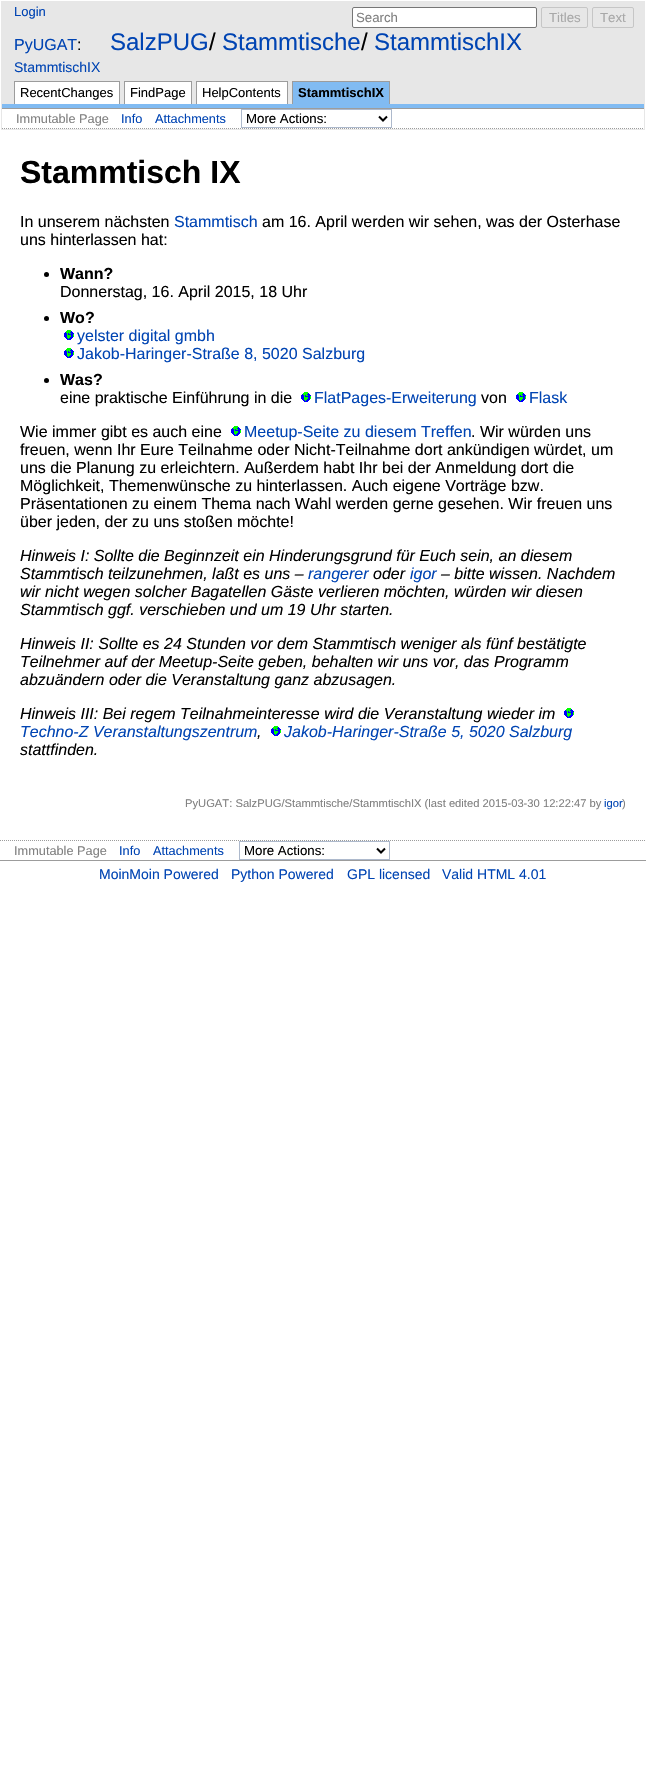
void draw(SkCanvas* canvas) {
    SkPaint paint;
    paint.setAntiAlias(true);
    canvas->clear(0xFFFFFFFF);
    paint.setColor(0xFFE7E7E7);
    canvas->drawRect(SkRect::MakeXYWH(1, 1, 644, 129), paint);
    SkFont font1(fontMgr->matchFamilyStyle("Liberation Sans", SkFontStyle::Normal()), 13);
    font1.setSubpixel(true);
    paint.setColor(0xFF0044B3);
    canvas->drawString("Login", 14, 16, font1, paint);
    paint.setColor(0xFFFFFFFF);
    canvas->drawRoundRect(SkRect::MakeXYWH(352.5f, 7.5f, 184, 20), 1.5f, 1.5f, paint);
    paint.setStyle(SkPaint::kStroke_Style);
    paint.setStrokeWidth(1);
    paint.setColor(0xFF767676);
    canvas->drawRoundRect(SkRect::MakeXYWH(352.5f, 7.5f, 184, 20), 1.5f, 1.5f, paint);
    SkFont font2(fontMgr->matchFamilyStyle("Liberation Sans", SkFontStyle::Normal()), 13.25f);
    font2.setSubpixel(true);
    paint.setStyle(SkPaint::kFill_Style);
    paint.setColor(0xFF808080);
    canvas->drawString("Search", 356, 22, font2, paint);
    paint.setStyle(SkPaint::kStroke_Style);
    paint.setColor(0xFFC6C6C6);
    canvas->drawRoundRect(SkRect::MakeXYWH(541.5f, 7.5f, 46, 20), 1.5f, 1.5f, paint);
    paint.setStyle(SkPaint::kFill_Style);
    paint.setColor(0xFFA8A8A8);
    canvas->drawString("Titles", 549, 22, font2, paint);
    paint.setStyle(SkPaint::kStroke_Style);
    paint.setColor(0xFFC6C6C6);
    canvas->drawRoundRect(SkRect::MakeXYWH(592.5f, 7.5f, 41, 20), 1.5f, 1.5f, paint);
    paint.setStyle(SkPaint::kFill_Style);
    paint.setColor(0xFFA8A8A8);
    canvas->drawString("Text", 600, 22, font2, paint);
    SkFont font3(fontMgr->matchFamilyStyle("Liberation Sans", SkFontStyle::Normal()), 16);
    font3.setSubpixel(true);
    paint.setColor(0xFF0044B3);
    canvas->drawString("PyUGAT", 14, 50, font3, paint);
    paint.setColor(0xFF000000);
    canvas->drawString(":", 77, 50, font3, paint);
    SkFont font4(fontMgr->matchFamilyStyle("Liberation Sans", SkFontStyle::Normal()), 24);
    font4.setSubpixel(true);
    paint.setColor(0xFF0044B3);
    canvas->drawString("SalzPUG", 110, 50, font4, paint);
    paint.setColor(0xFF000000);
    canvas->drawString("/", 209, 50, font4, paint);
    paint.setColor(0xFF0044B3);
    canvas->drawString("Stammtische", 222, 50, font4, paint);
    paint.setColor(0xFF000000);
    canvas->drawString("/", 361, 50, font4, paint);
    paint.setColor(0xFF0044B3);
    canvas->drawString("StammtischIX", 374, 50, font4, paint);
    SkFont font5(fontMgr->matchFamilyStyle("Liberation Sans", SkFontStyle::Normal()), 14);
    font5.setSubpixel(true);
    canvas->drawString("StammtischIX", 14, 72, font5, paint);
    paint.setColor(0xFFFFFFFF);
    canvas->drawRect(SkRect::MakeXYWH(15, 82, 104, 22), paint);
    paint.setColor(0xFF9C9C9C);
    canvas->drawRect(SkRect::MakeXYWH(14, 81, 106, 1), paint);
    canvas->drawRect(SkRect::MakeXYWH(119, 81, 1, 23), paint);
    canvas->drawRect(SkRect::MakeXYWH(14, 81, 1, 23), paint);
    paint.setColor(0xFF000000);
    canvas->drawString("RecentChanges", 20, 97, font1, paint);
    paint.setColor(0xFFFFFFFF);
    canvas->drawRect(SkRect::MakeXYWH(125, 82, 66, 22), paint);
    paint.setColor(0xFF9C9C9C);
    canvas->drawRect(SkRect::MakeXYWH(124, 81, 68, 1), paint);
    canvas->drawRect(SkRect::MakeXYWH(191, 81, 1, 23), paint);
    canvas->drawRect(SkRect::MakeXYWH(124, 81, 1, 23), paint);
    paint.setColor(0xFF000000);
    canvas->drawString("FindPage", 130, 97, font1, paint);
    paint.setColor(0xFFFFFFFF);
    canvas->drawRect(SkRect::MakeXYWH(197, 82, 90, 22), paint);
    paint.setColor(0xFF9C9C9C);
    canvas->drawRect(SkRect::MakeXYWH(196, 81, 92, 1), paint);
    canvas->drawRect(SkRect::MakeXYWH(287, 81, 1, 23), paint);
    canvas->drawRect(SkRect::MakeXYWH(196, 81, 1, 23), paint);
    paint.setColor(0xFF000000);
    canvas->drawString("HelpContents", 202, 97, font1, paint);
    paint.setColor(0xFF81BBF2);
    canvas->drawRect(SkRect::MakeXYWH(293, 82, 96, 22), paint);
    paint.setColor(0xFF9C9C9C);
    canvas->drawRect(SkRect::MakeXYWH(292, 81, 98, 1), paint);
    canvas->drawRect(SkRect::MakeXYWH(389, 81, 1, 23), paint);
    canvas->drawRect(SkRect::MakeXYWH(292, 81, 1, 23), paint);
    SkFont font6(fontMgr->matchFamilyStyle("Liberation Sans", SkFontStyle::Bold()), 13);
    font6.setSubpixel(true);
    paint.setColor(0xFF000000);
    canvas->drawString("StammtischIX", 298, 97, font6, paint);
    paint.setColor(0xFF81BBF2);
    canvas->drawRect(SkRect::MakeXYWH(2, 104, 642, 4), paint);
    paint.setColor(0xFF9C9C9C);
    canvas->drawRect(SkRect::MakeXYWH(2, 108, 642, 1), paint);
    paint.setColor(0xFFFFFFFF);
    canvas->drawRect(SkRect::MakeXYWH(2, 109, 642, 20), paint);
    paint.setStyle(SkPaint::kStroke_Style);
    paint.setColor(0xFF9C9C9C);
    paint.setPathEffect(SkDashPathEffect::Make({{1, 1}}, 0));
    canvas->drawPath(SkPathBuilder().moveTo(2, 128.5f).lineTo(644, 128.5f).detach(), paint);
    paint.setPathEffect(nullptr);
    SkFont font7(fontMgr->matchFamilyStyle("Liberation Sans", SkFontStyle::Normal()), 12.75f);
    font7.setSubpixel(true);
    paint.setStyle(SkPaint::kFill_Style);
    paint.setColor(0xFF808080);
    canvas->drawString("Immutable Page", 16, 123, font7, paint);
    paint.setColor(0xFF0044B3);
    canvas->drawString("Info", 121, 123, font7, paint);
    canvas->drawString("Attachments", 155, 123, font7, paint);
    paint.setStyle(SkPaint::kStroke_Style);
    paint.setColor(0xFFADB9CC);
    canvas->drawRect(SkRect::MakeXYWH(241.5f, 109.5f, 150, 18), paint);
    paint.setStrokeWidth(2);
    paint.setColor(0xFF000000);
    canvas->drawPath(SkPathBuilder().moveTo(379, 116.5f).lineTo(383, 120.5f).lineTo(387, 116.5f).detach(), paint);
    paint.setStyle(SkPaint::kFill_Style);
    canvas->drawString("More Actions:", 246, 123, font2, paint);
    SkFont font8(fontMgr->matchFamilyStyle("Liberation Sans", SkFontStyle::Bold()), 32);
    font8.setSubpixel(true);
    canvas->drawString("Stammtisch IX", 20, 183, font8, paint);
    canvas->drawString("In unserem nächsten", 20, 227, font3, paint);
    paint.setColor(0xFF0044B3);
    canvas->drawString("Stammtisch", 174, 227, font3, paint);
    paint.setColor(0xFF000000);
    canvas->drawString("am 16. April werden wir sehen, was der Osterhase", 262, 227, font3, paint);
    canvas->drawString("uns hinterlassen hat:", 20, 245, font3, paint);
    canvas->drawCircle(46.5f, 274.5f, 2.5f, paint);
    SkFont font9(fontMgr->matchFamilyStyle("Liberation Sans", SkFontStyle::Bold()), 16);
    font9.setSubpixel(true);
    canvas->drawString("Wann?", 60, 279, font9, paint);
    canvas->drawString("Donnerstag, 16. April 2015, 18 Uhr", 60, 297, font3, paint);
    canvas->drawCircle(46.5f, 318.5f, 2.5f, paint);
    canvas->drawString("Wo?", 60, 323, font9, paint);
    canvas->drawImageRect(SkImages::DeferredFromEncodedData(SkData::MakeFromFileName("img1.png")), SkRect::MakeXYWH(64, 330, 10, 10), SkSamplingOptions());
    paint.setColor(0xFF0044B3);
    canvas->drawString("yelster digital gmbh", 77, 341, font3, paint);
    canvas->drawImageRect(SkImages::DeferredFromEncodedData(SkData::MakeFromFileName("img1.png")), SkRect::MakeXYWH(64, 348, 10, 10), SkSamplingOptions());
    canvas->drawString("Jakob-Haringer-Straße 8, 5020 Salzburg", 77, 359, font3, paint);
    paint.setColor(0xFF000000);
    canvas->drawCircle(46.5f, 380.5f, 2.5f, paint);
    canvas->drawString("Was?", 60, 385, font9, paint);
    canvas->drawString("eine praktische Einführung in die", 60, 403, font3, paint);
    canvas->drawImageRect(SkImages::DeferredFromEncodedData(SkData::MakeFromFileName("img1.png")), SkRect::MakeXYWH(301, 392, 10, 10), SkSamplingOptions());
    paint.setColor(0xFF0044B3);
    canvas->drawString("FlatPages-Erweiterung", 314, 403, font3, paint);
    paint.setColor(0xFF000000);
    canvas->drawString("von", 481, 403, font3, paint);
    canvas->drawImageRect(SkImages::DeferredFromEncodedData(SkData::MakeFromFileName("img1.png")), SkRect::MakeXYWH(516, 392, 10, 10), SkSamplingOptions());
    paint.setColor(0xFF0044B3);
    canvas->drawString("Flask", 529, 403, font3, paint);
    paint.setColor(0xFF000000);
    canvas->drawString("Wie immer gibt es auch eine", 20, 437, font3, paint);
    canvas->drawImageRect(SkImages::DeferredFromEncodedData(SkData::MakeFromFileName("img1.png")), SkRect::MakeXYWH(231, 426, 10, 10), SkSamplingOptions());
    paint.setColor(0xFF0044B3);
    canvas->drawString("Meetup-Seite zu diesem Treffen", 244, 437, font3, paint);
    paint.setColor(0xFF000000);
    canvas->drawString(". Wir würden uns", 471, 437, font3, paint);
    canvas->drawString("freuen, wenn Ihr Eure Teilnahme oder Nicht-Teilnahme dort ankündigen würdet, um", 20, 455, font3, paint);
    canvas->drawString("uns die Planung zu erleichtern. Außerdem habt Ihr bei der Anmeldung dort die", 20, 473, font3, paint);
    canvas->drawString("Möglichkeit, Themenwünsche zu hinterlassen. Auch eigene Vorträge bzw.", 20, 491, font3, paint);
    canvas->drawString("Präsentationen zu einem Thema nach Wahl werden gerne gesehen. Wir freuen uns", 20, 509, font3, paint);
    canvas->drawString("über jeden, der zu uns stoßen möchte!", 20, 527, font3, paint);
    SkFont font10(fontMgr->matchFamilyStyle("Liberation Sans", SkFontStyle::Italic()), 16);
    font10.setSubpixel(true);
    canvas->drawString("Hinweis I: Sollte die Beginnzeit ein Hinderungsgrund für Euch sein, an diesem", 20, 561, font10, paint);
    canvas->drawString("Stammtisch teilzunehmen, laßt es uns –", 20, 579, font10, paint);
    paint.setColor(0xFF0044B3);
    canvas->drawString("rangerer", 308, 579, font10, paint);
    paint.setColor(0xFF000000);
    canvas->drawString("oder", 373, 579, font10, paint);
    paint.setColor(0xFF0044B3);
    canvas->drawString("igor", 410, 579, font10, paint);
    paint.setColor(0xFF000000);
    canvas->drawString("– bitte wissen. Nachdem", 441, 579, font10, paint);
    canvas->drawString("wir nicht wegen solcher Bagatellen Gäste verlieren möchten, würden wir diesen", 20, 597, font10, paint);
    canvas->drawString("Stammtisch ggf. verschieben und um 19 Uhr starten.", 20, 615, font10, paint);
    canvas->drawString("Hinweis II: Sollte es 24 Stunden vor dem Stammtisch weniger als fünf bestätigte", 20, 649, font10, paint);
    canvas->drawString("Teilnehmer auf der Meetup-Seite geben, behalten wir uns vor, das Programm", 20, 667, font10, paint);
    canvas->drawString("abzuändern oder die Veranstaltung ganz abzusagen.", 20, 685, font10, paint);
    canvas->drawString("Hinweis III: Bei regem Teilnahmeinteresse wird die Veranstaltung wieder im", 20, 719, font10, paint);
    canvas->drawImageRect(SkImages::DeferredFromEncodedData(SkData::MakeFromFileName("img1.png")), SkRect::MakeXYWH(564, 708, 10, 10), SkSamplingOptions());
    paint.setColor(0xFF0044B3);
    canvas->drawString("Techno-Z Veranstaltungszentrum", 20, 737, font10, paint);
    canvas->drawImageRect(SkImages::DeferredFromEncodedData(SkData::MakeFromFileName("img1.png")), SkRect::MakeXYWH(271, 726, 10, 10), SkSamplingOptions());
    canvas->drawString("Jakob-Haringer-Straße 5, 5020 Salzburg", 284, 737, font10, paint);
    paint.setColor(0xFF000000);
    canvas->drawString(",", 257, 737, font10, paint);
    canvas->drawString("stattfinden.", 20, 755, font10, paint);
    SkFont font11(fontMgr->matchFamilyStyle("Liberation Sans", SkFontStyle::Normal()), 11.2f);
    font11.setSubpixel(true);
    paint.setColor(0xFF808080);
    canvas->drawString("PyUGAT: SalzPUG/Stammtische/StammtischIX (last edited 2015-03-30 12:22:47 by", 185, 807, font11, paint);
    paint.setColor(0xFF0044B3);
    canvas->drawString("igor", 604, 807, font11, paint);
    paint.setColor(0xFF808080);
    canvas->drawString(")", 622, 807, font11, paint);
    paint.setStyle(SkPaint::kStroke_Style);
    paint.setStrokeWidth(1);
    paint.setColor(0xFF9C9C9C);
    paint.setPathEffect(SkDashPathEffect::Make({{1, 1}}, 0));
    canvas->drawPath(SkPathBuilder().moveTo(0, 840.5f).lineTo(646, 840.5f).detach(), paint);
    paint.setPathEffect(nullptr);
    paint.setStyle(SkPaint::kFill_Style);
    canvas->drawRect(SkRect::MakeXYWH(0, 860, 646, 1), paint);
    paint.setColor(0xFF808080);
    canvas->drawString("Immutable Page", 14, 855, font7, paint);
    paint.setColor(0xFF0044B3);
    canvas->drawString("Info", 119, 855, font7, paint);
    canvas->drawString("Attachments", 153, 855, font7, paint);
    paint.setStyle(SkPaint::kStroke_Style);
    paint.setColor(0xFFADB9CC);
    canvas->drawRect(SkRect::MakeXYWH(239.5f, 841.5f, 150, 18), paint);
    paint.setStrokeWidth(2);
    paint.setColor(0xFF000000);
    canvas->drawPath(SkPathBuilder().moveTo(377, 848.5f).lineTo(381, 852.5f).lineTo(385, 848.5f).detach(), paint);
    paint.setStyle(SkPaint::kFill_Style);
    canvas->drawString("More Actions:", 244, 855, font2, paint);
    paint.setColor(0xFF0044B3);
    canvas->drawString("MoinMoin Powered", 99, 879, font5, paint);
    canvas->drawString("Python Powered", 231, 879, font5, paint);
    canvas->drawString("GPL licensed", 347, 879, font5, paint);
    canvas->drawString("Valid HTML 4.01", 442, 879, font5, paint);
}
